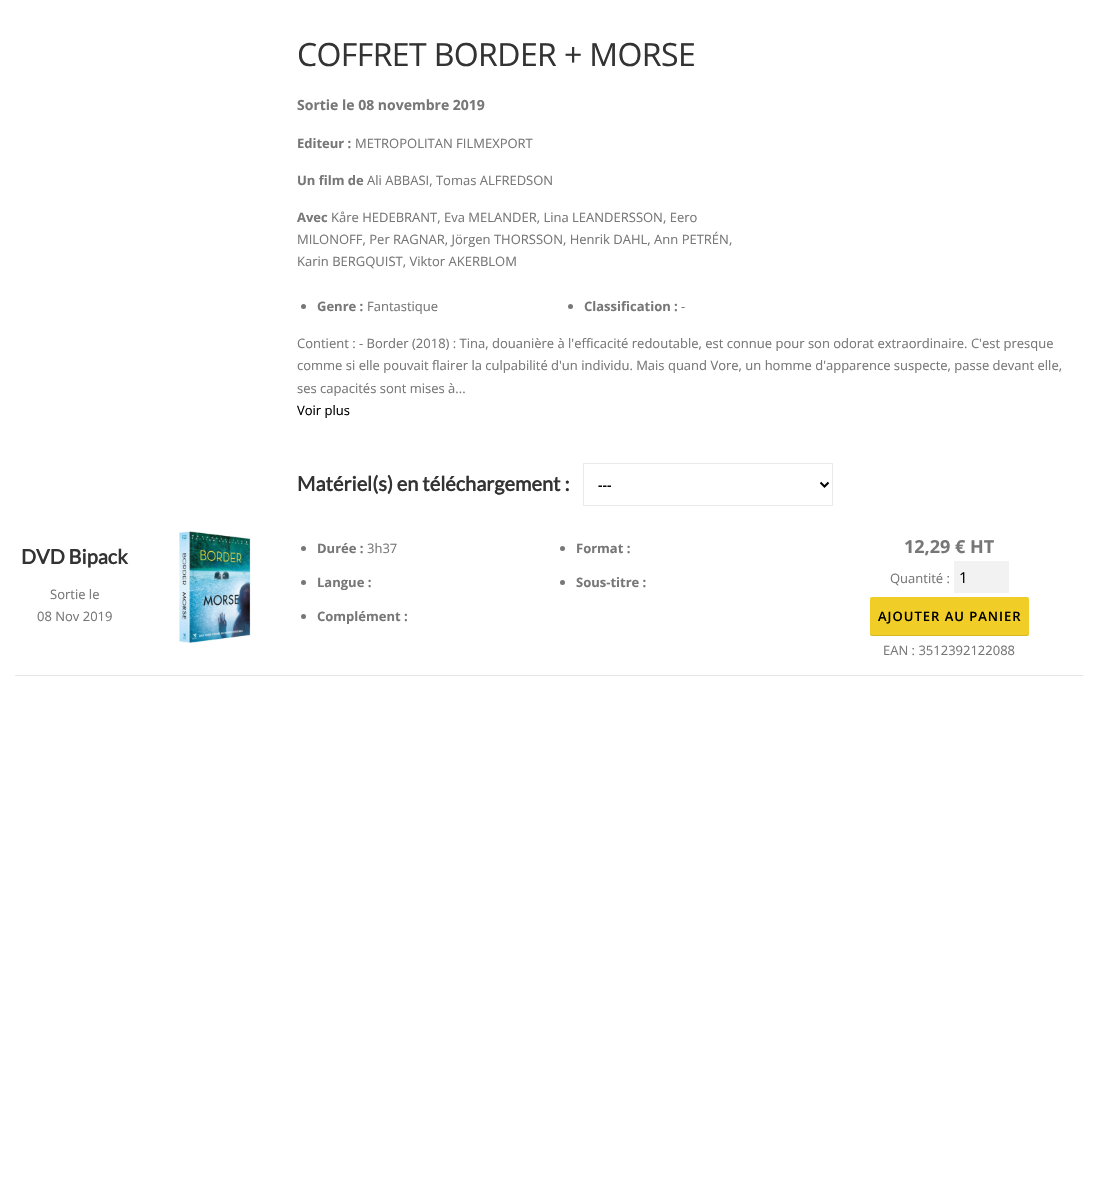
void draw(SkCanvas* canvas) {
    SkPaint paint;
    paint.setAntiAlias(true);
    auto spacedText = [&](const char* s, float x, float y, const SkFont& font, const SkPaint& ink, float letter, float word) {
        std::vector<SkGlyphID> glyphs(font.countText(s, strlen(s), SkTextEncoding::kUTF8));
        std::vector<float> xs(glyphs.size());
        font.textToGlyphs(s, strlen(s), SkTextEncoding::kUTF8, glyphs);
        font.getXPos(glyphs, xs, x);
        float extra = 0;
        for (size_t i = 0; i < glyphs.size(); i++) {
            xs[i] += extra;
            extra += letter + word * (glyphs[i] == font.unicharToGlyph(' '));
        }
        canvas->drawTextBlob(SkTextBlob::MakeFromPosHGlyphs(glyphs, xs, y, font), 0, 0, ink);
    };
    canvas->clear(0xFFFFFFFF);
    SkFont font1(fontMgr->matchFamilyStyle("Open Sans", SkFontStyle::Normal()), 32);
    font1.setSubpixel(true);
    paint.setColor(0xFF333333);
    spacedText("COFFRET BORDER + MORSE", 297, 66, font1, paint, -0.6f, 0);
    SkFont font2(fontMgr->matchFamilyStyle("Open Sans", SkFontStyle::Bold()), 14);
    font2.setSubpixel(true);
    paint.setColor(0xFF777777);
    canvas->drawString("Sortie le 08 novembre 2019", 297, 110, font2, paint);
    SkFont font3(fontMgr->matchFamilyStyle("Open Sans", SkFontStyle::Bold()), 13);
    font3.setSubpixel(true);
    canvas->drawString("Editeur :", 297, 148, font3, paint);
    SkFont font4(fontMgr->matchFamilyStyle("Open Sans", SkFontStyle::Normal()), 13);
    font4.setSubpixel(true);
    canvas->drawString("METROPOLITAN FILMEXPORT", 355, 148, font4, paint);
    canvas->drawString("Un film de", 297, 185, font3, paint);
    canvas->drawString("Ali ABBASI, Tomas ALFREDSON", 367, 185, font4, paint);
    canvas->drawString("Avec", 297, 222, font3, paint);
    canvas->drawString("Kåre HEDEBRANT, Eva MELANDER, Lina LEANDERSSON, Eero", 331, 222, font4, paint);
    canvas->drawString("MILONOFF, Per RAGNAR, Jörgen THORSSON, Henrik DAHL, Ann PETRÉN,", 297, 244, font4, paint);
    canvas->drawString("Karin BERGQUIST, Viktor AKERBLOM", 297, 266, font4, paint);
    canvas->drawCircle(303.5f, 306.5f, 2.5f, paint);
    canvas->drawString("Genre :", 317, 311, font3, paint);
    canvas->drawString("Fantastique", 367, 311, font4, paint);
    canvas->drawCircle(570.5f, 306.5f, 2.5f, paint);
    canvas->drawString("Classification :", 584, 311, font3, paint);
    canvas->drawString("-", 681, 311, font4, paint);
    canvas->drawString("Contient : - Border (2018) : Tina, douanière à l'efficacité redoutable, est connue pour son odorat extraordinaire. C'est presque", 297, 348, font4, paint);
    canvas->drawString("comme si elle pouvait flairer la culpabilité d'un individu. Mais quand Vore, un homme d'apparence suspecte, passe devant elle,", 297, 370, font4, paint);
    canvas->drawString("ses capacités sont mises à...", 297, 393, font4, paint);
    paint.setColor(0xFF000000);
    canvas->drawString("Voir plus", 297, 415, font4, paint);
    SkFont font5(fontMgr->matchFamilyStyle("Lato", SkFontStyle::Bold()), 20);
    font5.setSubpixel(true);
    paint.setColor(0xFF333333);
    canvas->drawString("Matériel(s) en téléchargement :", 297, 491, font5, paint);
    paint.setStyle(SkPaint::kStroke_Style);
    paint.setStrokeWidth(1);
    paint.setColor(0xFFE9E9E9);
    canvas->drawRect(SkRect::MakeXYWH(583.5f, 463.5f, 249, 42), paint);
    paint.setStrokeWidth(2);
    paint.setColor(0xFF000000);
    canvas->drawPath(SkPathBuilder().moveTo(820.5f, 482.5f).lineTo(824.5f, 486.5f).lineTo(828.5f, 482.5f).detach(), paint);
    SkFont font6(fontMgr->matchFamilyStyle("Open Sans", SkFontStyle(600, SkFontStyle::kNormal_Width, SkFontStyle::kUpright_Slant)), 14);
    font6.setSubpixel(true);
    paint.setStyle(SkPaint::kFill_Style);
    canvas->drawString("---", 598, 490, font6, paint);
    paint.setColor(0xFFE6E6E6);
    canvas->drawRect(SkRect::MakeXYWH(15, 675, 1068, 1), paint);
    paint.setColor(0xFF333333);
    canvas->drawString("DVD Bipack", 21, 564, font5, paint);
    paint.setColor(0xFF777777);
    canvas->drawString("Sortie le", 50, 599, font4, paint);
    canvas->drawString("08 Nov 2019", 37, 621, font4, paint);
    canvas->drawImageRect(SkImages::DeferredFromEncodedData(SkData::MakeFromFileName("img1.png")), SkRect::MakeXYWH(179, 531, 72, 112), SkSamplingOptions());
    canvas->drawCircle(303.5f, 548.5f, 2.5f, paint);
    canvas->drawString("Durée :", 317, 553, font3, paint);
    canvas->drawString("3h37", 367, 553, font4, paint);
    canvas->drawCircle(562.5f, 548.5f, 2.5f, paint);
    canvas->drawString("Format :", 576, 553, font3, paint);
    canvas->drawCircle(303.5f, 582.5f, 2.5f, paint);
    canvas->drawString("Langue :", 317, 587, font3, paint);
    canvas->drawCircle(562.5f, 582.5f, 2.5f, paint);
    canvas->drawString("Sous-titre :", 576, 587, font3, paint);
    canvas->drawCircle(303.5f, 616.5f, 2.5f, paint);
    canvas->drawString("Complément :", 317, 621, font3, paint);
    SkFont font7(fontMgr->matchFamilyStyle("Open Sans", SkFontStyle::Bold()), 18);
    font7.setSubpixel(true);
    canvas->drawString("12,29 € HT", 904, 553, font7, paint);
    canvas->drawString("Quantité :", 890, 583, font4, paint);
    paint.setColor(0xFFF2F2F2);
    canvas->drawRect(SkRect::MakeXYWH(954, 561, 55, 32), paint);
    SkFont font8(fontMgr->matchFamilyStyle("Open Sans", SkFontStyle::Normal()), 15);
    font8.setSubpixel(true);
    paint.setColor(0xFF000000);
    canvas->drawString("1", 959, 583, font8, paint);
    paint.setColor(0xFFF0CD27);
    canvas->drawRoundRect(SkRect::MakeXYWH(870, 597, 159, 39), 2, 2, paint);
    paint.setColor(0x1A000000);
    canvas->drawPath(SkPathBuilder().moveTo(870, 633).cubicTo(870, 634, 870, 636, 872, 636).lineTo(1027, 636).cubicTo(1029, 636, 1029, 634, 1029, 633).cubicTo(1029, 634, 1028, 635, 1027, 635).lineTo(872, 635).cubicTo(871, 635, 870, 634, 870, 633).close().detach(), paint);
    SkFont font9(fontMgr->matchFamilyStyle("Open Sans", SkFontStyle(600, SkFontStyle::kNormal_Width, SkFontStyle::kUpright_Slant)), 13);
    font9.setSubpixel(true);
    paint.setColor(0xFF000000);
    spacedText("AJOUTER AU PANIER", 878, 621, font9, paint, 1, 0);
    paint.setColor(0xFF777777);
    canvas->drawString("EAN : 3512392122088", 883, 655, font4, paint);
}
